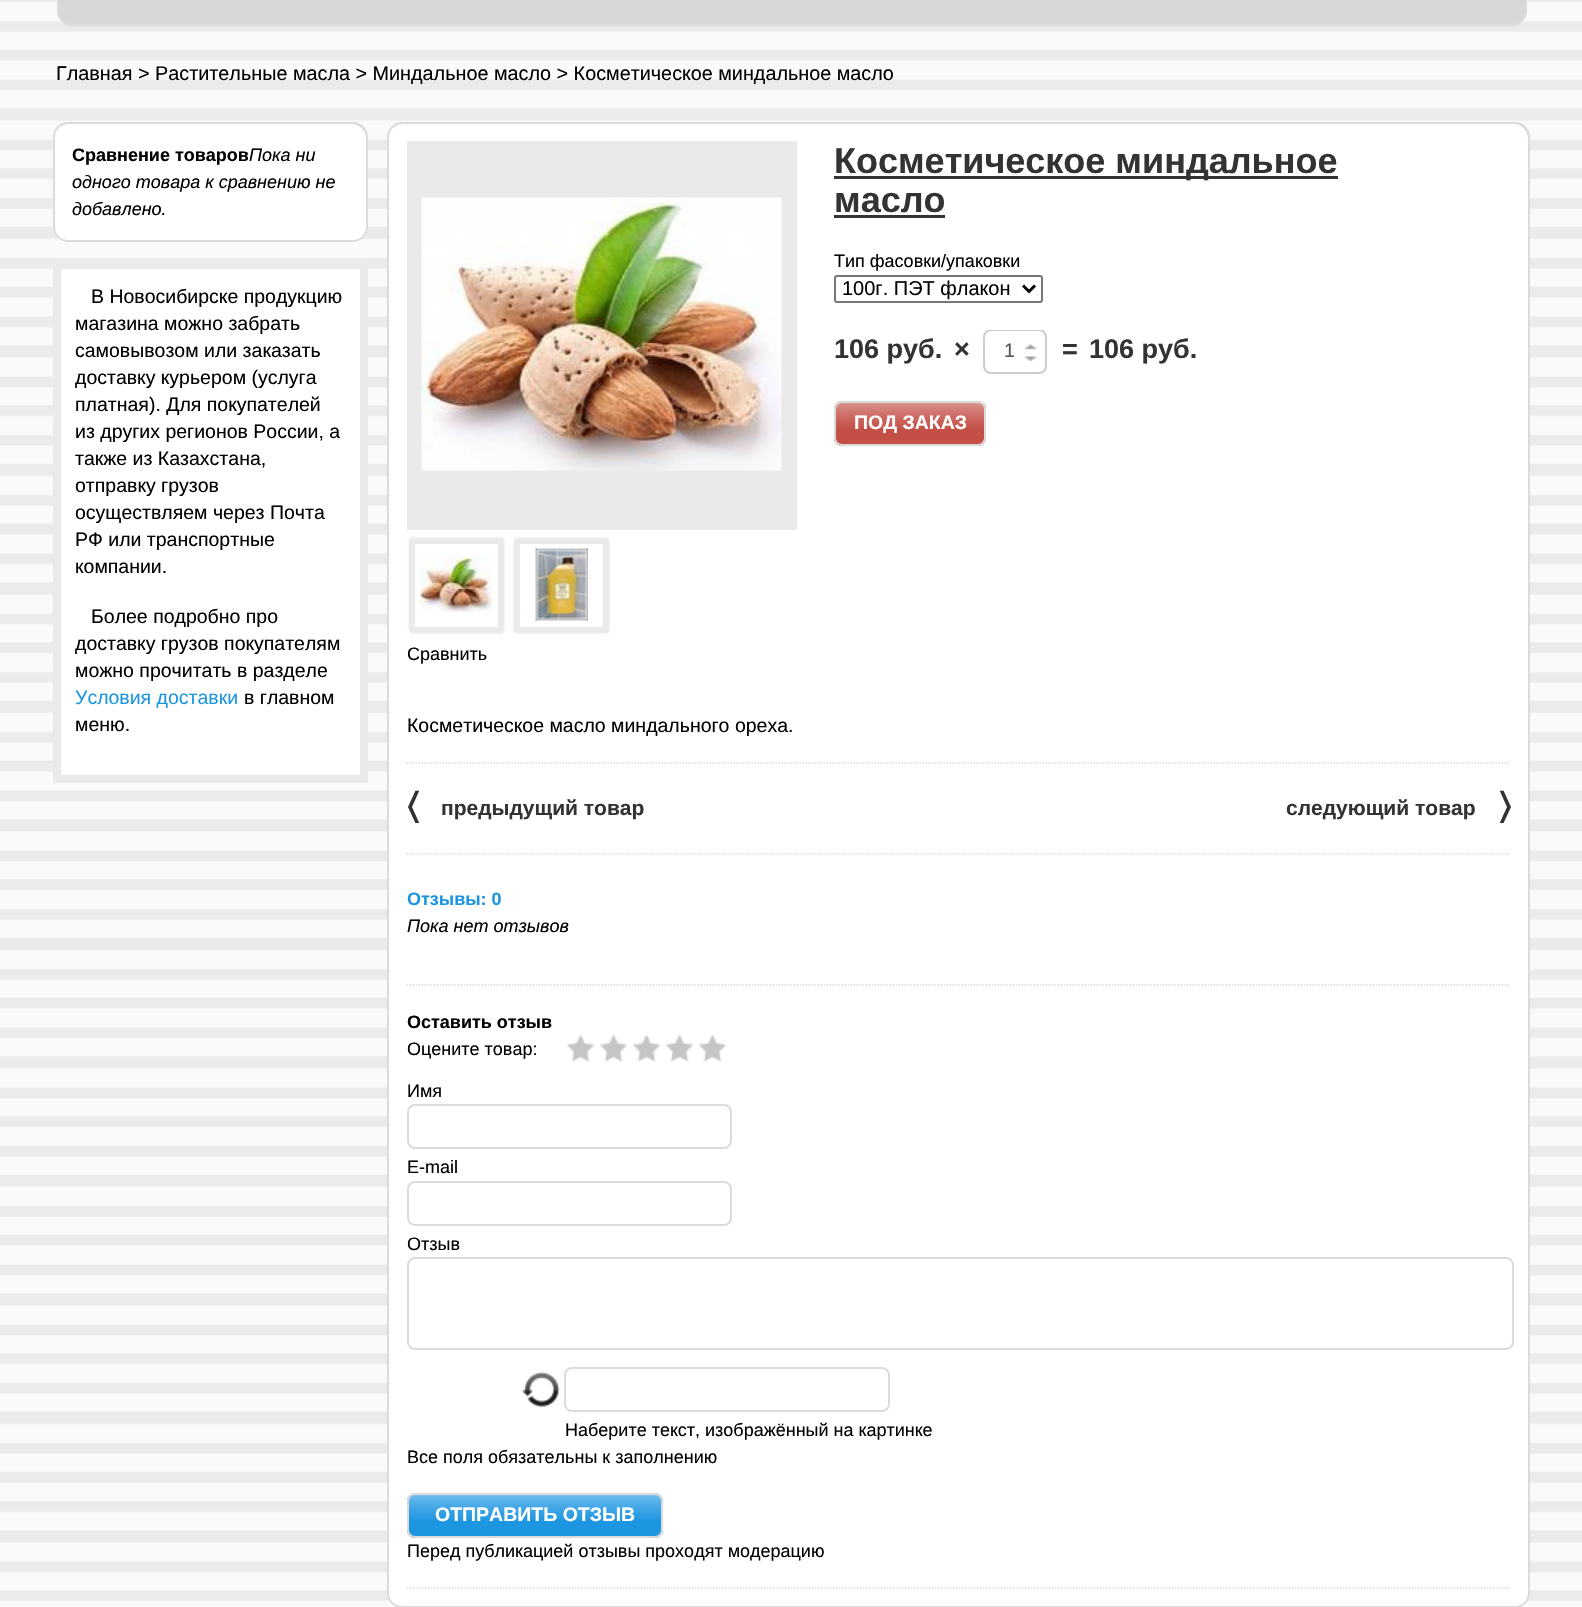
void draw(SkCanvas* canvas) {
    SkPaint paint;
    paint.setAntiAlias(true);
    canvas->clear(0xFFFAFAFA);
    canvas->drawImageRect(SkImages::DeferredFromEncodedData(SkData::MakeFromFileName("img1.png")), SkRect::MakeXYWH(0, 0, 1582, 1601), SkSamplingOptions());
    paint.setColor(0xFFD8D8D8);
    canvas->drawRoundRect(SkRect::MakeXYWH(58, -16, 1468, 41), 14, 14, paint);
    paint.setStyle(SkPaint::kStroke_Style);
    paint.setStrokeWidth(2);
    paint.setColor(0xFFDBDBDB);
    canvas->drawRoundRect(SkRect::MakeXYWH(58, -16, 1468, 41), 14, 14, paint);
    SkFont font1(fontMgr->matchFamilyStyle("Liberation Sans", SkFontStyle::Normal()), 19.8f);
    font1.setSubpixel(true);
    paint.setStyle(SkPaint::kFill_Style);
    paint.setColor(0xFF030000);
    canvas->drawString("Главная > Растительные масла > Миндальное масло > Косметическое миндальное масло", 56, 80, font1, paint);
    paint.setColor(0xFFFFFFFF);
    canvas->drawRoundRect(SkRect::MakeXYWH(53, 122, 315, 120), 15, 15, paint);
    paint.setColor(0xFFCCCCCC);
    canvas->drawPath(SkPathBuilder().moveTo(68, 124).lineTo(352, 124).cubicTo(360, 124, 366, 131, 366, 138).lineTo(366, 137).cubicTo(366, 129, 360, 123, 352, 123).lineTo(68, 123).cubicTo(60, 123, 54, 129, 54, 137).lineTo(54, 138).cubicTo(54, 131, 60, 124, 68, 124).close().detach(), paint);
    paint.setStyle(SkPaint::kStroke_Style);
    paint.setColor(0xFFDBDBDB);
    canvas->drawRoundRect(SkRect::MakeXYWH(54, 123, 313, 118), 14, 14, paint);
    SkFont font2(fontMgr->matchFamilyStyle("Liberation Sans", SkFontStyle::Bold()), 18);
    font2.setSubpixel(true);
    paint.setStyle(SkPaint::kFill_Style);
    paint.setColor(0xFF030000);
    canvas->drawString("Сравнение товаров", 72, 161, font2, paint);
    SkFont font3(fontMgr->matchFamilyStyle("Liberation Sans", SkFontStyle::Italic()), 18);
    font3.setSubpixel(true);
    canvas->drawString("Пока ни", 249, 161, font3, paint);
    canvas->drawString("одного товара к сравнению не", 72, 188, font3, paint);
    canvas->drawString("добавлено.", 72, 215, font3, paint);
    paint.setColor(0xFFFFFFFF);
    canvas->drawRect(SkRect::MakeXYWH(57, 265, 307, 514), paint);
    paint.setStyle(SkPaint::kStroke_Style);
    paint.setStrokeWidth(8);
    paint.setColor(0xFFEAEAEB);
    canvas->drawRect(SkRect::MakeXYWH(57, 265, 307, 514), paint);
    SkFont font4(fontMgr->matchFamilyStyle("Liberation Sans", SkFontStyle::Normal()), 19.5f);
    font4.setSubpixel(true);
    paint.setStyle(SkPaint::kFill_Style);
    paint.setColor(0xFF030000);
    canvas->drawString("В Новосибирске продукцию", 91, 303, font4, paint);
    canvas->drawString("магазина можно забрать", 75, 330, font4, paint);
    canvas->drawString("самовывозом или заказать", 75, 357, font4, paint);
    canvas->drawString("доставку курьером (услуга", 75, 384, font4, paint);
    canvas->drawString("платная). Для покупателей", 75, 411, font4, paint);
    canvas->drawString("из других регионов России, а", 75, 438, font4, paint);
    canvas->drawString("также из Казахстана,", 75, 465, font4, paint);
    canvas->drawString("отправку грузов", 75, 492, font4, paint);
    canvas->drawString("осуществляем через Почта", 75, 519, font4, paint);
    canvas->drawString("РФ или транспортные", 75, 546, font4, paint);
    canvas->drawString("компании.", 75, 573, font4, paint);
    canvas->drawString("Более подробно про", 91, 623, font4, paint);
    canvas->drawString("доставку грузов покупателям", 75, 650, font4, paint);
    canvas->drawString("можно прочитать в разделе", 75, 677, font4, paint);
    paint.setColor(0xFF1D96E2);
    canvas->drawString("Условия доставки", 75, 704, font4, paint);
    paint.setColor(0xFF030000);
    canvas->drawString("в главном", 244, 704, font4, paint);
    canvas->drawString("меню.", 75, 731, font4, paint);
    paint.setColor(0xFFFFFFFF);
    canvas->drawRoundRect(SkRect::MakeXYWH(387, 122, 1143, 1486), 15, 15, paint);
    paint.setColor(0xFFCCCCCC);
    canvas->drawPath(SkPathBuilder().moveTo(402, 124).lineTo(1515, 124).cubicTo(1522, 124, 1528, 131, 1528, 138).lineTo(1528, 1594).cubicTo(1528, 1597, 1527, 1600, 1526, 1602).cubicTo(1528, 1600, 1529, 1596, 1529, 1593).lineTo(1529, 137).cubicTo(1529, 129, 1523, 123, 1515, 123).lineTo(403, 123).cubicTo(398, 123, 393, 126, 391, 130).cubicTo(393, 127, 398, 124, 402, 124).close().detach(), paint);
    paint.setStyle(SkPaint::kStroke_Style);
    paint.setStrokeWidth(2);
    paint.setColor(0xFFDBDBDB);
    canvas->drawRoundRect(SkRect::MakeXYWH(388, 123, 1141, 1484), 14, 14, paint);
    paint.setStyle(SkPaint::kFill_Style);
    paint.setColor(0xFF333333);
    canvas->drawRect(SkRect::MakeXYWH(834, 176, 504, 3), paint);
    SkFont font5(fontMgr->matchFamilyStyle("Liberation Sans", SkFontStyle::Bold()), 36);
    font5.setSubpixel(true);
    canvas->drawString("Косметическое миндальное", 834, 173, font5, paint);
    canvas->drawString("масло", 834, 212, font5, paint);
    canvas->drawRect(SkRect::MakeXYWH(834, 215, 111, 3), paint);
    SkFont font6(fontMgr->matchFamilyStyle("Liberation Sans", SkFontStyle::Normal()), 18);
    font6.setSubpixel(true);
    paint.setColor(0xFF030000);
    canvas->drawString("Тип фасовки/упаковки", 834, 267, font6, paint);
    paint.setStyle(SkPaint::kStroke_Style);
    paint.setColor(0xFF767676);
    canvas->drawRoundRect(SkRect::MakeXYWH(835, 276, 207, 26), 2, 2, paint);
    paint.setStrokeWidth(3);
    paint.setColor(0xFF000000);
    canvas->drawPath(SkPathBuilder().moveTo(1023, 285.5f).lineTo(1029, 291.5f).lineTo(1035, 285.5f).detach(), paint);
    SkFont font7(fontMgr->matchFamilyStyle("Liberation Sans", SkFontStyle::Normal()), 20);
    font7.setSubpixel(true);
    paint.setStyle(SkPaint::kFill_Style);
    paint.setColor(0xFF030000);
    canvas->drawString("100г. ПЭТ флакон", 842, 295, font7, paint);
    SkFont font8(fontMgr->matchFamilyStyle("Liberation Sans", SkFontStyle::Bold()), 27);
    font8.setSubpixel(true);
    paint.setColor(0xFF333333);
    canvas->drawString("106 руб.", 834, 358, font8, paint);
    canvas->drawString("×", 954, 358, font8, paint);
    canvas->save();
    canvas->clipRect(SkRect::MakeXYWH(834, 330, 623, 44));
    paint.setStyle(SkPaint::kStroke_Style);
    paint.setStrokeWidth(2);
    paint.setColor(0xFFCCCCCC);
    canvas->drawRoundRect(SkRect::MakeXYWH(984, 330, 62, 43), 7, 7, paint);
    canvas->restore();
    paint.setStyle(SkPaint::kFill_Style);
    paint.setColor(0xFF545454);
    canvas->drawString("1", 1004, 357, font4, paint);
    canvas->drawImageRect(SkImages::DeferredFromEncodedData(SkData::MakeFromFileName("img2.png")), SkRect::MakeXYWH(1024, 344, 13, 6), SkSamplingOptions());
    canvas->drawImageRect(SkImages::DeferredFromEncodedData(SkData::MakeFromFileName("img3.png")), SkRect::MakeXYWH(1024, 356, 13, 5), SkSamplingOptions());
    paint.setColor(0xFF333333);
    canvas->drawString("=", 1062, 358, font8, paint);
    canvas->drawString("106 руб.", 1089, 358, font8, paint);
    paint.setColor(0xFFC44F47);
    canvas->drawRoundRect(SkRect::MakeXYWH(834, 401, 152, 45), 8, 8, paint);
    canvas->drawImageRect(SkImages::DeferredFromEncodedData(SkData::MakeFromFileName("img4.png")), SkRect::MakeXYWH(834, 401, 152, 27), SkSamplingOptions());
    paint.setStyle(SkPaint::kStroke_Style);
    paint.setColor(0xFFDBDBDB);
    canvas->drawRoundRect(SkRect::MakeXYWH(835, 402, 150, 43), 7, 7, paint);
    SkFont font9(fontMgr->matchFamilyStyle("Liberation Sans", SkFontStyle::Bold()), 19.5f);
    font9.setSubpixel(true);
    paint.setStyle(SkPaint::kFill_Style);
    paint.setColor(0xFFFFFFFF);
    canvas->drawString("ПОД ЗАКАЗ", 854, 429, font9, paint);
    paint.setColor(0xFFEAEAEB);
    canvas->drawRect(SkRect::MakeXYWH(407, 141, 390, 389), paint);
    canvas->drawImageRect(SkImages::DeferredFromEncodedData(SkData::MakeFromFileName("img5.png")), SkRect::MakeXYWH(421, 197, 361, 274), SkSamplingOptions());
    canvas->save();
    canvas->clipPath(SkPathBuilder(SkPathFillType::kEvenOdd).moveTo(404, 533).lineTo(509, 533).lineTo(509, 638).lineTo(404, 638).close().moveTo(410, 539).lineTo(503, 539).lineTo(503, 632).lineTo(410, 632).close().detach(), true);
    paint.setColor(0xFFCCCCCC);
    paint.setMaskFilter(SkMaskFilter::MakeBlur(kNormal_SkBlurStyle, 1.5f));
    canvas->drawRect(SkRect::MakeXYWH(410, 539, 93, 93), paint);
    paint.setMaskFilter(nullptr);
    canvas->restore();
    canvas->drawImageRect(SkImages::DeferredFromEncodedData(SkData::MakeFromFileName("img6.png")), SkRect::MakeXYWH(420, 557, 72, 55), SkSamplingOptions());
    paint.setStyle(SkPaint::kStroke_Style);
    paint.setStrokeWidth(5);
    paint.setColor(0xFFEAEAEB);
    canvas->drawRect(SkRect::MakeXYWH(412.5f, 541.5f, 88, 88), paint);
    canvas->save();
    canvas->clipPath(SkPathBuilder(SkPathFillType::kEvenOdd).moveTo(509, 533).lineTo(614, 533).lineTo(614, 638).lineTo(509, 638).close().moveTo(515, 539).lineTo(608, 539).lineTo(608, 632).lineTo(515, 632).close().detach(), true);
    paint.setStyle(SkPaint::kFill_Style);
    paint.setColor(0xFFCCCCCC);
    paint.setMaskFilter(SkMaskFilter::MakeBlur(kNormal_SkBlurStyle, 1.5f));
    canvas->drawRect(SkRect::MakeXYWH(515, 539, 93, 93), paint);
    paint.setMaskFilter(nullptr);
    canvas->restore();
    canvas->drawImageRect(SkImages::DeferredFromEncodedData(SkData::MakeFromFileName("img7.png")), SkRect::MakeXYWH(535, 548, 53, 73), SkSamplingOptions());
    paint.setStyle(SkPaint::kStroke_Style);
    paint.setColor(0xFFEAEAEB);
    canvas->drawRect(SkRect::MakeXYWH(517.5f, 541.5f, 88, 88), paint);
    paint.setStyle(SkPaint::kFill_Style);
    paint.setColor(0xFF030000);
    canvas->drawString("Сравнить", 407, 660, font6, paint);
    canvas->drawString("Косметическое масло миндального ореха.", 407, 732, font4, paint);
    paint.setStyle(SkPaint::kStroke_Style);
    paint.setStrokeWidth(1.5f);
    paint.setColor(0xFFDBDBDB);
    paint.setPathEffect(SkDashPathEffect::Make({{1.5f, 1.5f}}, 0));
    canvas->drawPath(SkPathBuilder().moveTo(406.5f, 763).lineTo(1510.5f, 763).detach(), paint);
    paint.setPathEffect(nullptr);
    paint.setPathEffect(SkDashPathEffect::Make({{1.5f, 1.5f}}, 0));
    canvas->drawPath(SkPathBuilder().moveTo(406.5f, 854).lineTo(1510.5f, 854).detach(), paint);
    paint.setPathEffect(nullptr);
    SkFont font10(fontMgr->matchFamilyStyle("FreeSans", SkFontStyle::Bold()), 36);
    font10.setSubpixel(true);
    paint.setStyle(SkPaint::kFill_Style);
    paint.setColor(0xFF333333);
    canvas->drawString("〈", 407, 818, font10, paint);
    SkFont font11(fontMgr->matchFamilyStyle("Liberation Sans", SkFontStyle::Bold()), 21);
    font11.setSubpixel(true);
    canvas->drawString("предыдущий товар", 441, 815, font11, paint);
    canvas->drawString("следующий товар", 1286, 815, font11, paint);
    canvas->drawString("〉", 1499, 818, font10, paint);
    paint.setColor(0xFF1D96E2);
    canvas->drawString("Отзывы: 0", 407, 905, font2, paint);
    paint.setColor(0xFF030000);
    canvas->drawString("Пока нет отзывов", 407, 932, font3, paint);
    paint.setStyle(SkPaint::kStroke_Style);
    paint.setColor(0xFFDBDBDB);
    paint.setPathEffect(SkDashPathEffect::Make({{1.5f, 1.5f}}, 0));
    canvas->drawPath(SkPathBuilder().moveTo(406.5f, 985).lineTo(1510.5f, 985).detach(), paint);
    paint.setPathEffect(nullptr);
    paint.setPathEffect(SkDashPathEffect::Make({{1.5f, 1.5f}}, 0));
    canvas->drawPath(SkPathBuilder().moveTo(406.5f, 1588).lineTo(1510.5f, 1588).detach(), paint);
    paint.setPathEffect(nullptr);
    paint.setStyle(SkPaint::kFill_Style);
    paint.setColor(0xFF030000);
    canvas->drawString("Оставить отзыв", 407, 1028, font2, paint);
    canvas->drawString("Оцените товар:", 407, 1055, font6, paint);
    canvas->drawImageRect(SkImages::DeferredFromEncodedData(SkData::MakeFromFileName("img8.png")), SkRect::MakeXYWH(567, 1034, 27, 28), SkSamplingOptions());
    canvas->drawImageRect(SkImages::DeferredFromEncodedData(SkData::MakeFromFileName("img8.png")), SkRect::MakeXYWH(600, 1034, 27, 28), SkSamplingOptions());
    canvas->drawImageRect(SkImages::DeferredFromEncodedData(SkData::MakeFromFileName("img9.png")), SkRect::MakeXYWH(633, 1034, 27, 28), SkSamplingOptions());
    canvas->drawImageRect(SkImages::DeferredFromEncodedData(SkData::MakeFromFileName("img9.png")), SkRect::MakeXYWH(666, 1034, 27, 28), SkSamplingOptions());
    canvas->drawImageRect(SkImages::DeferredFromEncodedData(SkData::MakeFromFileName("img9.png")), SkRect::MakeXYWH(699, 1034, 27, 28), SkSamplingOptions());
    canvas->drawString("Имя", 407, 1097, font6, paint);
    paint.setStyle(SkPaint::kStroke_Style);
    paint.setStrokeWidth(2);
    paint.setColor(0xFFDBDBDB);
    canvas->drawRoundRect(SkRect::MakeXYWH(408, 1105, 323, 43), 7, 7, paint);
    paint.setStyle(SkPaint::kFill_Style);
    paint.setColor(0xFF030000);
    canvas->drawString("E-mail", 407, 1173, font6, paint);
    paint.setStyle(SkPaint::kStroke_Style);
    paint.setColor(0xFFDBDBDB);
    canvas->drawRoundRect(SkRect::MakeXYWH(408, 1182, 323, 43), 7, 7, paint);
    paint.setStyle(SkPaint::kFill_Style);
    paint.setColor(0xFF030000);
    canvas->drawString("Отзыв", 407, 1250, font6, paint);
    paint.setStyle(SkPaint::kStroke_Style);
    paint.setColor(0xFFDBDBDB);
    canvas->drawRoundRect(SkRect::MakeXYWH(408, 1258, 1105, 91), 7, 7, paint);
    canvas->drawImageRect(SkImages::DeferredFromEncodedData(SkData::MakeFromFileName("img10.png")), SkRect::MakeXYWH(521, 1371, 39, 36), SkSamplingOptions());
    canvas->drawRoundRect(SkRect::MakeXYWH(565, 1368, 324, 43), 7, 7, paint);
    paint.setStyle(SkPaint::kFill_Style);
    paint.setColor(0xFF030000);
    canvas->drawString("Наберите текст, изображённый на картинке", 565, 1436, font6, paint);
    canvas->drawString("Все поля обязательны к заполнению", 407, 1463, font6, paint);
    paint.setColor(0xFF1D96E2);
    canvas->drawRoundRect(SkRect::MakeXYWH(407, 1493, 256, 45), 8, 8, paint);
    canvas->drawImageRect(SkImages::DeferredFromEncodedData(SkData::MakeFromFileName("img11.png")), SkRect::MakeXYWH(407, 1493, 256, 27), SkSamplingOptions());
    paint.setStyle(SkPaint::kStroke_Style);
    paint.setColor(0xFFDBDBDB);
    canvas->drawRoundRect(SkRect::MakeXYWH(408, 1494, 254, 43), 7, 7, paint);
    paint.setStyle(SkPaint::kFill_Style);
    paint.setColor(0xFFFFFFFF);
    canvas->drawString("ОТПРАВИТЬ ОТЗЫВ", 435, 1521, font9, paint);
    paint.setColor(0xFF030000);
    canvas->drawString("Перед публикацией отзывы проходят модерацию", 407, 1557, font6, paint);
}
